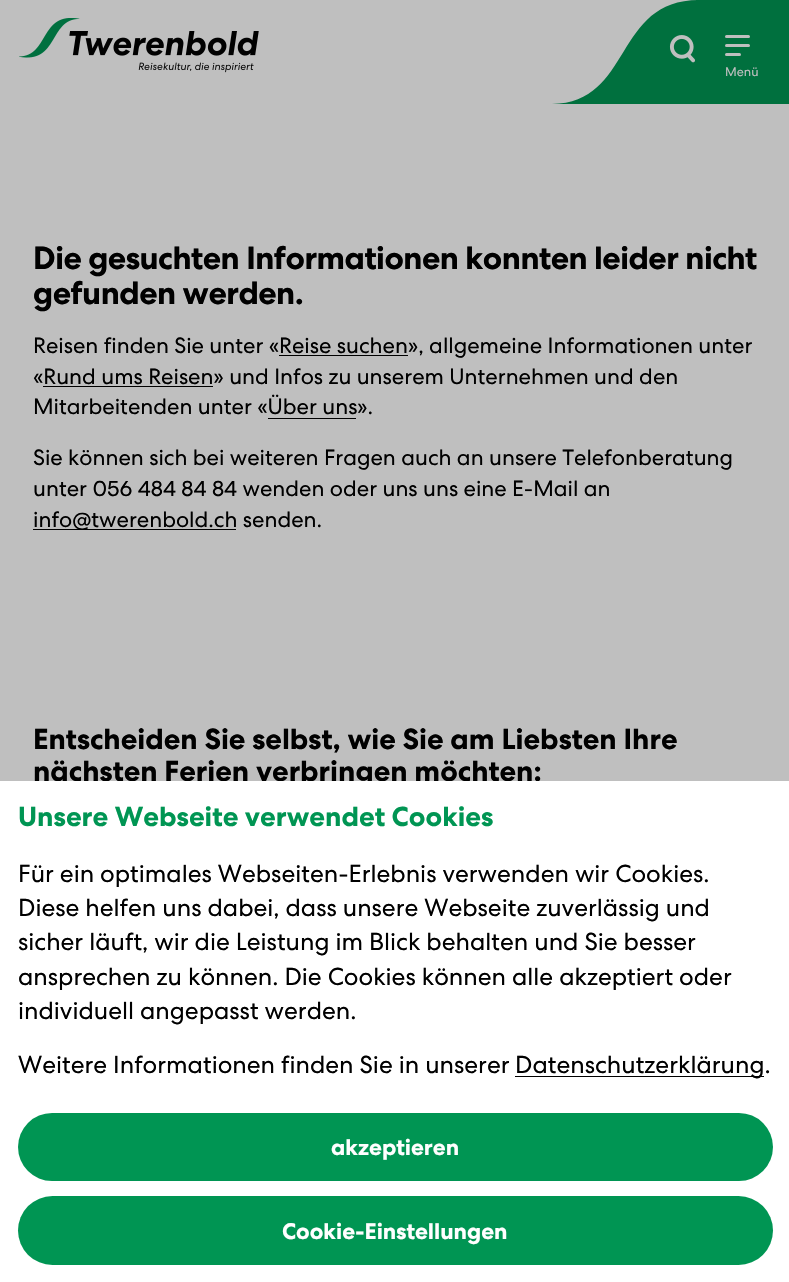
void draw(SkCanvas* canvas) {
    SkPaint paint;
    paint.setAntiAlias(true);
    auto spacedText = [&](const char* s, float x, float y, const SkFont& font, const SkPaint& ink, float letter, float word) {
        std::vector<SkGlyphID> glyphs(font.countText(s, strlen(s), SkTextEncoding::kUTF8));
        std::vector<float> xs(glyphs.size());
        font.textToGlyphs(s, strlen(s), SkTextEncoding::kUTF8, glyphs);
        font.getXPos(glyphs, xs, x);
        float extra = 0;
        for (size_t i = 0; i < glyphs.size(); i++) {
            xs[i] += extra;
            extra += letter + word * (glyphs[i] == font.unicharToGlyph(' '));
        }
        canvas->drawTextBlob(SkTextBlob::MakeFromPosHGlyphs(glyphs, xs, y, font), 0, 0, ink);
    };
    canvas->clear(0xFFBFBFBF);
    paint.setColor(0xFF00703E);
    canvas->drawPath(SkPathBuilder().moveTo(552, 104).cubicTo(633, 103, 613, 0, 699, 0).lineTo(699, 104).lineTo(552, 104).detach(), paint);
    canvas->drawRect(SkRect::MakeXYWH(696, 0, 93, 104), paint);
    canvas->drawImageRect(SkImages::DeferredFromEncodedData(SkData::MakeFromFileName("img1.png")), SkRect::MakeXYWH(19, 18, 240, 55), SkSamplingOptions());
    canvas->drawImageRect(SkImages::DeferredFromEncodedData(SkData::MakeFromFileName("img2.png")), SkRect::MakeXYWH(669, 35, 26, 28), SkSamplingOptions());
    paint.setColor(0xFFBFBFBF);
    canvas->drawRoundRect(SkRect::MakeXYWH(725, 35, 25, 3), 1.5f, 1.5f, paint);
    canvas->drawRoundRect(SkRect::MakeXYWH(725, 44, 25, 3), 1.5f, 1.5f, paint);
    canvas->drawRoundRect(SkRect::MakeXYWH(725, 53, 16, 3), 1.5f, 1.5f, paint);
    SkFont font1(fontMgr->matchFamilyStyle("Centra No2", SkFontStyle::Normal()), 12.5f);
    font1.setSubpixel(true);
    canvas->drawString("Menü", 725, 76, font1, paint);
    SkFont font2(fontMgr->matchFamilyStyle("Centra No2", SkFontStyle::Bold()), 32);
    font2.setSubpixel(true);
    paint.setColor(0xFF000000);
    spacedText("Die gesuchten Informationen konnten leider nicht", 33, 269, font2, paint, -0.5f, 0);
    spacedText("gefunden werden.", 33, 304, font2, paint, -0.5f, 0);
    SkFont font3(fontMgr->matchFamilyStyle("Centra No2", SkFontStyle::Normal()), 22);
    font3.setSubpixel(true);
    canvas->drawString("Reisen finden Sie unter «Reise suchen», allgemeine Informationen unter", 33, 353, font3, paint);
    canvas->drawRect(SkRect::MakeXYWH(279, 355, 129, 1), paint);
    canvas->drawString("«Rund ums Reisen» und Infos zu unserem Unternehmen und den", 33, 384, font3, paint);
    canvas->drawRect(SkRect::MakeXYWH(43, 386, 170, 1), paint);
    canvas->drawString("Mitarbeitenden unter «Über uns».", 33, 414, font3, paint);
    canvas->drawRect(SkRect::MakeXYWH(268, 418, 88, 1), paint);
    canvas->drawString("Sie können sich bei weiteren Fragen auch an unsere Telefonberatung", 33, 465, font3, paint);
    canvas->drawString("unter 056 484 84 84 wenden oder uns uns eine E-Mail an", 33, 496, font3, paint);
    canvas->drawRect(SkRect::MakeXYWH(33, 529, 203, 1), paint);
    canvas->drawString("info@twerenbold.ch senden.", 33, 527, font3, paint);
    SkFont font4(fontMgr->matchFamilyStyle("Centra No2", SkFontStyle::Bold()), 29);
    font4.setSubpixel(true);
    canvas->drawString("Entscheiden Sie selbst, wie Sie am Liebsten Ihre", 33, 749, font4, paint);
    canvas->drawString("nächsten Ferien verbringen möchten:", 33, 781, font4, paint);
    paint.setColor(0xFFFFFFFF);
    canvas->drawRect(SkRect::MakeXYWH(0, 781, 789, 501), paint);
    SkFont font5(fontMgr->matchFamilyStyle("Centra No2", SkFontStyle::Bold()), 27.5f);
    font5.setSubpixel(true);
    paint.setColor(0xFF009553);
    canvas->drawString("Unsere Webseite verwendet Cookies", 18, 826, font5, paint);
    SkFont font6(fontMgr->matchFamilyStyle("Centra No2", SkFontStyle::Normal()), 24.5f);
    font6.setSubpixel(true);
    paint.setColor(0xFF000000);
    canvas->drawString("Für ein optimales Webseiten-Erlebnis verwenden wir Cookies.", 18, 882, font6, paint);
    canvas->drawString("Diese helfen uns dabei, dass unsere Webseite zuverlässig und", 18, 916, font6, paint);
    canvas->drawString("sicher läuft, wir die Leistung im Blick behalten und Sie besser", 18, 950, font6, paint);
    canvas->drawString("ansprechen zu können. Die Cookies können alle akzeptiert oder", 18, 985, font6, paint);
    canvas->drawString("individuell angepasst werden.", 18, 1019, font6, paint);
    canvas->drawString("Weitere Informationen finden Sie in unserer", 18, 1073, font6, paint);
    canvas->drawRect(SkRect::MakeXYWH(515, 1076, 249, 1), paint);
    canvas->drawString("Datenschutzerklärung.", 515, 1073, font6, paint);
    paint.setColor(0xFF009553);
    canvas->drawRoundRect(SkRect::MakeXYWH(18, 1113, 755, 68), 34, 34, paint);
    SkFont font7(fontMgr->matchFamilyStyle("Centra No2", SkFontStyle::Bold()), 22.5f);
    font7.setSubpixel(true);
    paint.setColor(0xFFFFFFFF);
    canvas->drawString("akzeptieren", 331, 1155, font7, paint);
    paint.setColor(0xFF009553);
    canvas->drawRoundRect(SkRect::MakeXYWH(18, 1196, 755, 69), 34.5f, 34.5f, paint);
    paint.setColor(0xFFFFFFFF);
    canvas->drawString("Cookie-Einstellungen", 282, 1239, font7, paint);
}
